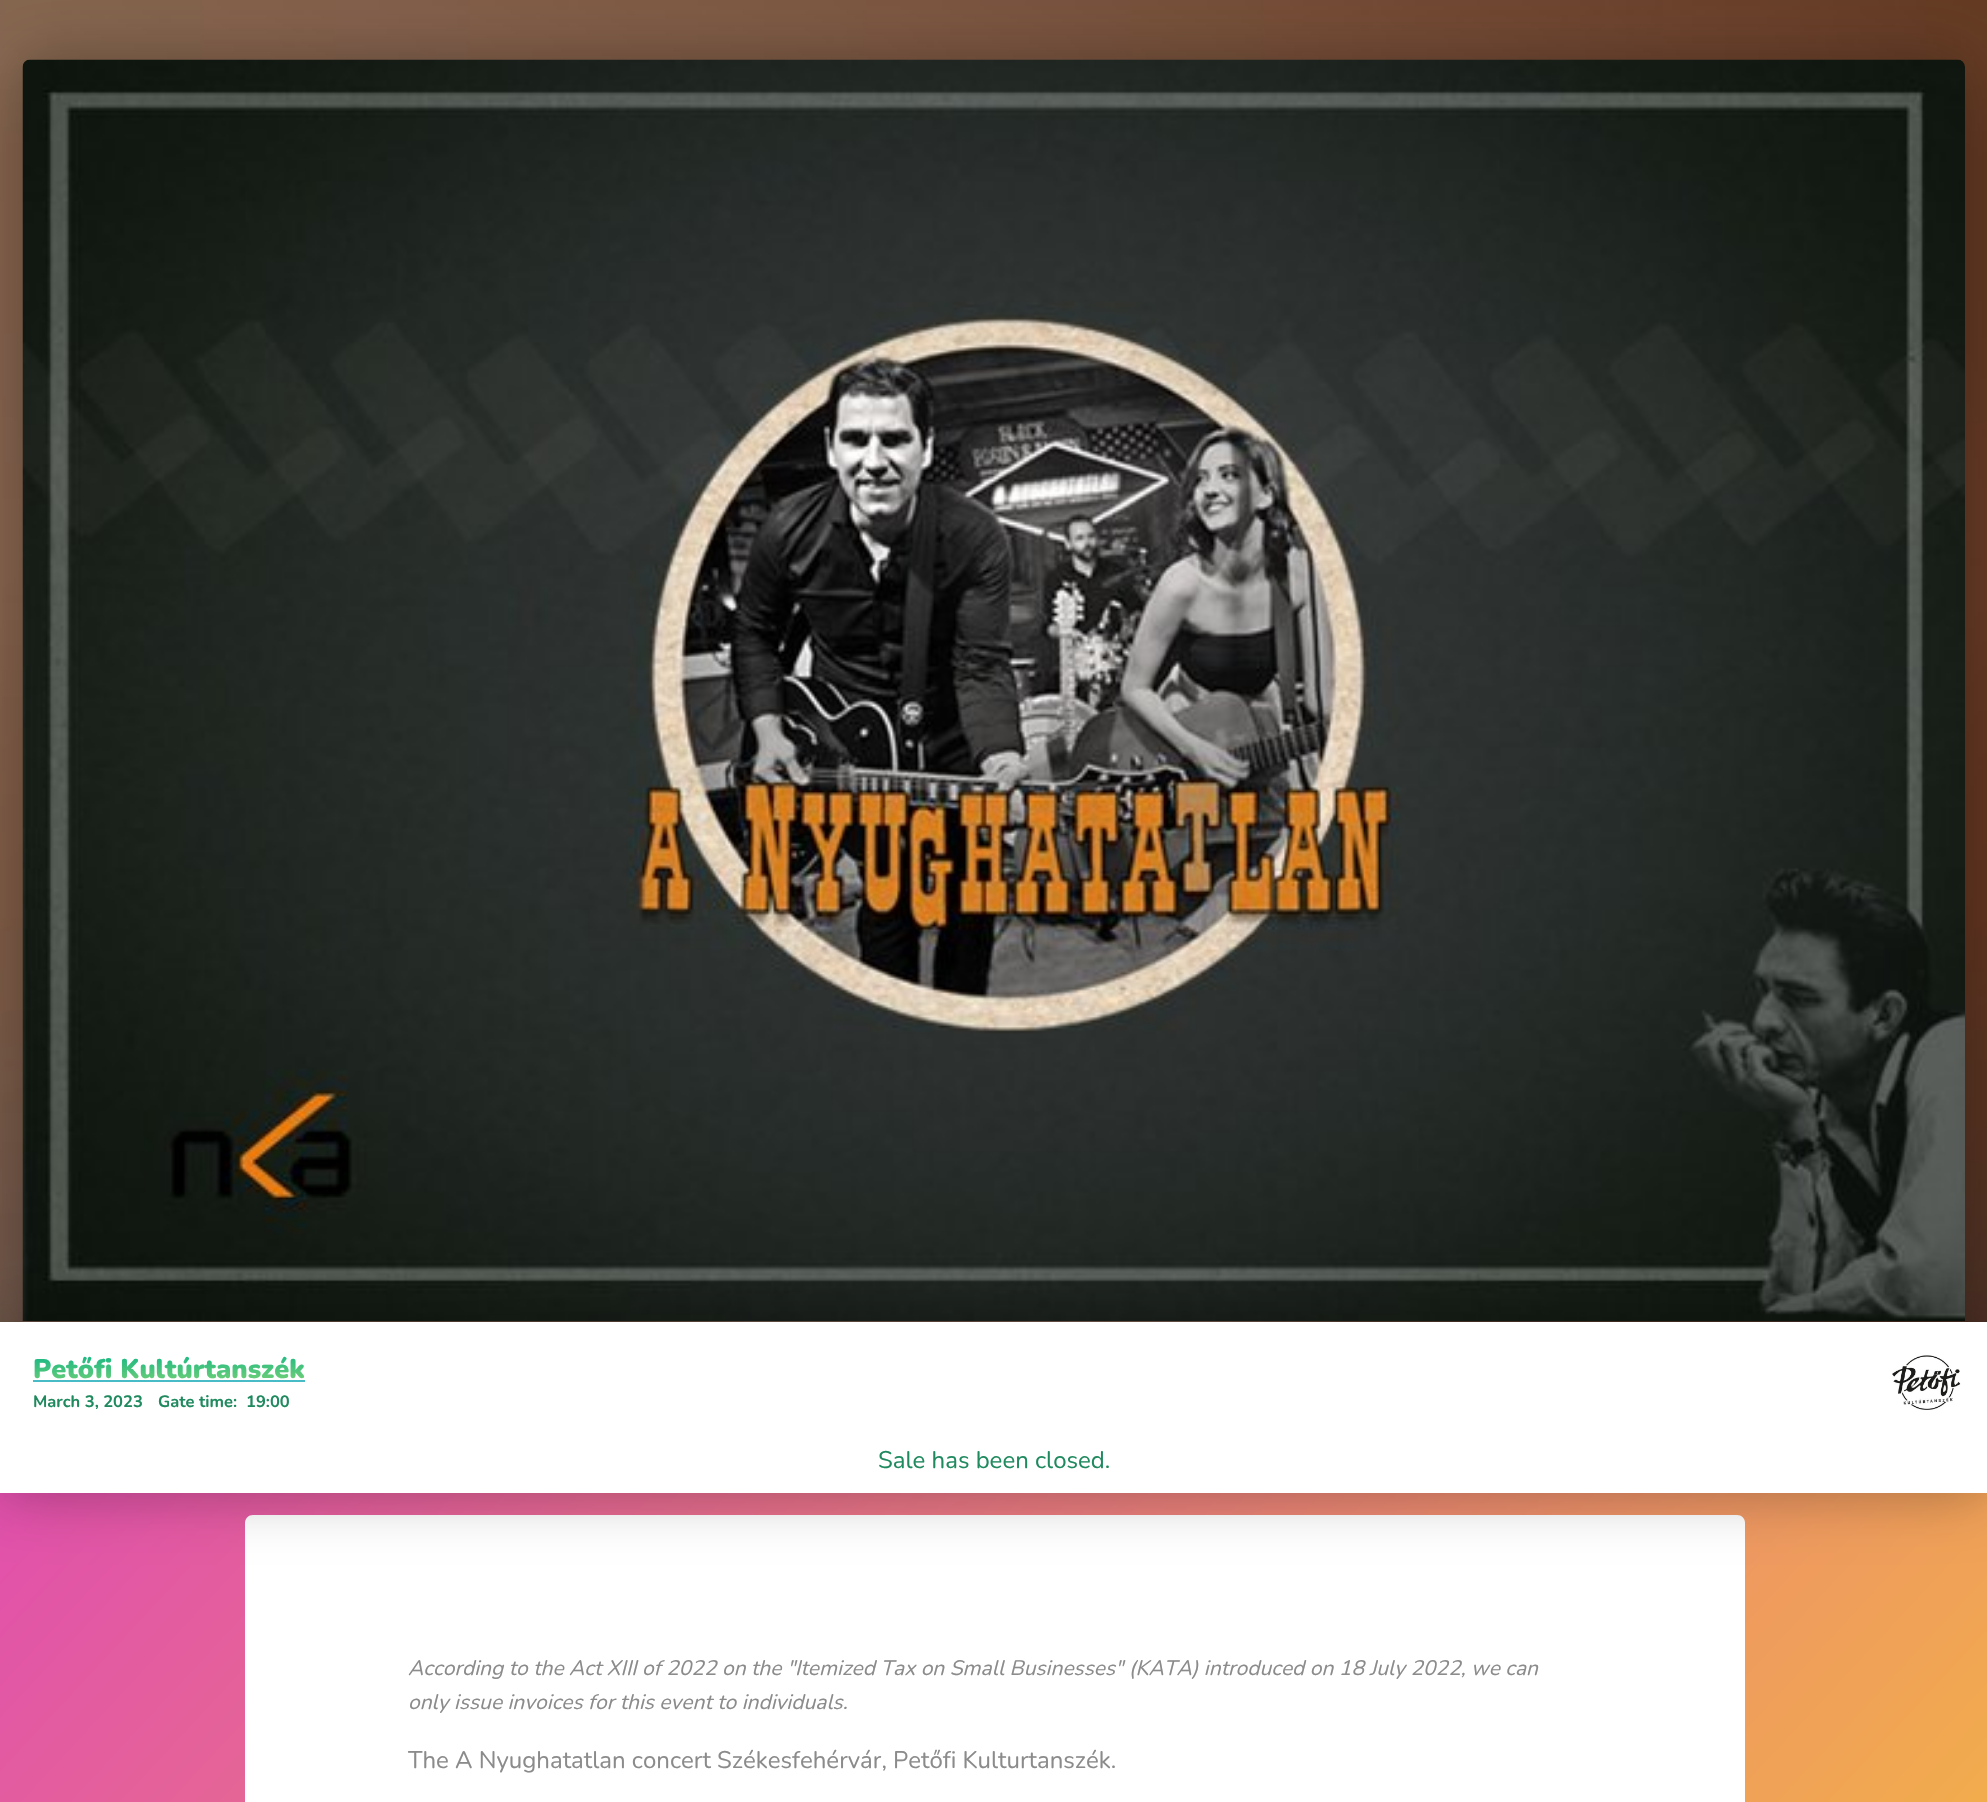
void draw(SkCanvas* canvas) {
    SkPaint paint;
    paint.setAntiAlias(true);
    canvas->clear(0xFFFFFFFF);
    canvas->drawImageRect(SkImages::DeferredFromEncodedData(SkData::MakeFromFileName("img1.png")), SkRect::MakeXYWH(0, 0, 1987, 1322), SkSamplingOptions());
    {
        const SkColor colors[] = {0xFFE14FAD, 0xFFF9D423};
        const float stops[] = {0, 1};
        const SkPoint ends[] = {{111, 1346}, {1876, 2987}};
        paint.setShader(SkGradientShader::MakeLinear(ends, colors, stops, 2, SkTileMode::kClamp));
        paint.setAlpha(255);
    }
    canvas->drawPath(SkPathBuilder().moveTo(0, 1465).lineTo(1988, 1326).lineTo(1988, 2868).lineTo(0, 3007).close().detach(), paint);
    paint.setShader(nullptr);
    paint.setColor(0x4D000000);
    paint.setMaskFilter(SkMaskFilter::MakeBlur(kNormal_SkBlurStyle, 30));
    canvas->drawRoundRect(SkRect::MakeXYWH(23, 60, 1942, 1262), 8, 8, paint);
    paint.setMaskFilter(nullptr);
    canvas->drawImageRect(SkImages::DeferredFromEncodedData(SkData::MakeFromFileName("img2.png")), SkRect::MakeXYWH(22, 59, 1943, 1262), SkSamplingOptions());
    paint.setColor(0xFFFFFFFF);
    canvas->drawPath(SkPathBuilder().moveTo(253, 1515).lineTo(1737, 1515).cubicTo(1741.5f, 1515, 1745, 1518.5f, 1745, 1523).lineTo(1745, 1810).lineTo(245, 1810).lineTo(245, 1523).cubicTo(245, 1518.5f, 248.5f, 1515, 253, 1515).close().detach(), paint);
    paint.setColor(0x4D000000);
    paint.setMaskFilter(SkMaskFilter::MakeBlur(kNormal_SkBlurStyle, 30));
    canvas->drawRoundRect(SkRect::MakeXYWH(0, 1322, 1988, 171), 8, 8, paint);
    paint.setMaskFilter(nullptr);
    paint.setColor(0xFFFFFFFF);
    canvas->drawRect(SkRect::MakeXYWH(0, 1322, 1987, 171), paint);
    SkFont font1(fontMgr->matchFamilyStyle("Nunito", SkFontStyle(900, SkFontStyle::kNormal_Width, SkFontStyle::kUpright_Slant)), 27);
    font1.setSubpixel(true);
    {
        const SkColor colors[] = {0xFF0CB586, 0xFFD3E768};
        const float stops[] = {0, 1};
        const SkPoint ends[] = {{957, 1338}, {958, 1402}};
        paint.setShader(SkGradientShader::MakeLinear(ends, colors, stops, 2, SkTileMode::kClamp));
        paint.setAlpha(255);
    }
    canvas->drawString("Petőfi Kultúrtanszék", 33, 1378, font1, paint);
    paint.setShader(nullptr);
    paint.setColor(0xFF47BCC7);
    canvas->drawRect(SkRect::MakeXYWH(33, 1380, 272, 2), paint);
    SkFont font2(fontMgr->matchFamilyStyle("Nunito", SkFontStyle::Bold()), 16.5f);
    font2.setSubpixel(true);
    paint.setColor(0xFF208A5F);
    canvas->drawString("March 3, 2023", 33, 1407, font2, paint);
    canvas->drawString("Gate time:", 158, 1407, font2, paint);
    canvas->drawString("19:00", 246, 1407, font2, paint);
    canvas->drawImageRect(SkImages::DeferredFromEncodedData(SkData::MakeFromFileName("img3.png")), SkRect::MakeXYWH(1892, 1355, 69, 55), SkSamplingOptions());
    SkFont font3(fontMgr->matchFamilyStyle("Nunito", SkFontStyle::Normal()), 24);
    font3.setSubpixel(true);
    canvas->drawString("Sale has been closed.", 878, 1468, font3, paint);
    SkFont font4(fontMgr->matchFamilyStyle("Nunito", SkFontStyle::Italic()), 21);
    font4.setSubpixel(true);
    paint.setColor(0xFF8B8B8B);
    canvas->drawString("According to the Act XIII of 2022 on the \"Itemized Tax on Small Businesses\" (KATA) introduced on 18 July 2022, we can", 408, 1675, font4, paint);
    canvas->drawString("only issue invoices for this event to individuals.", 408, 1709, font4, paint);
    canvas->drawString("The A Nyughatatlan concert Székesfehérvár, Petőfi Kulturtanszék.", 408, 1768, font3, paint);
}
